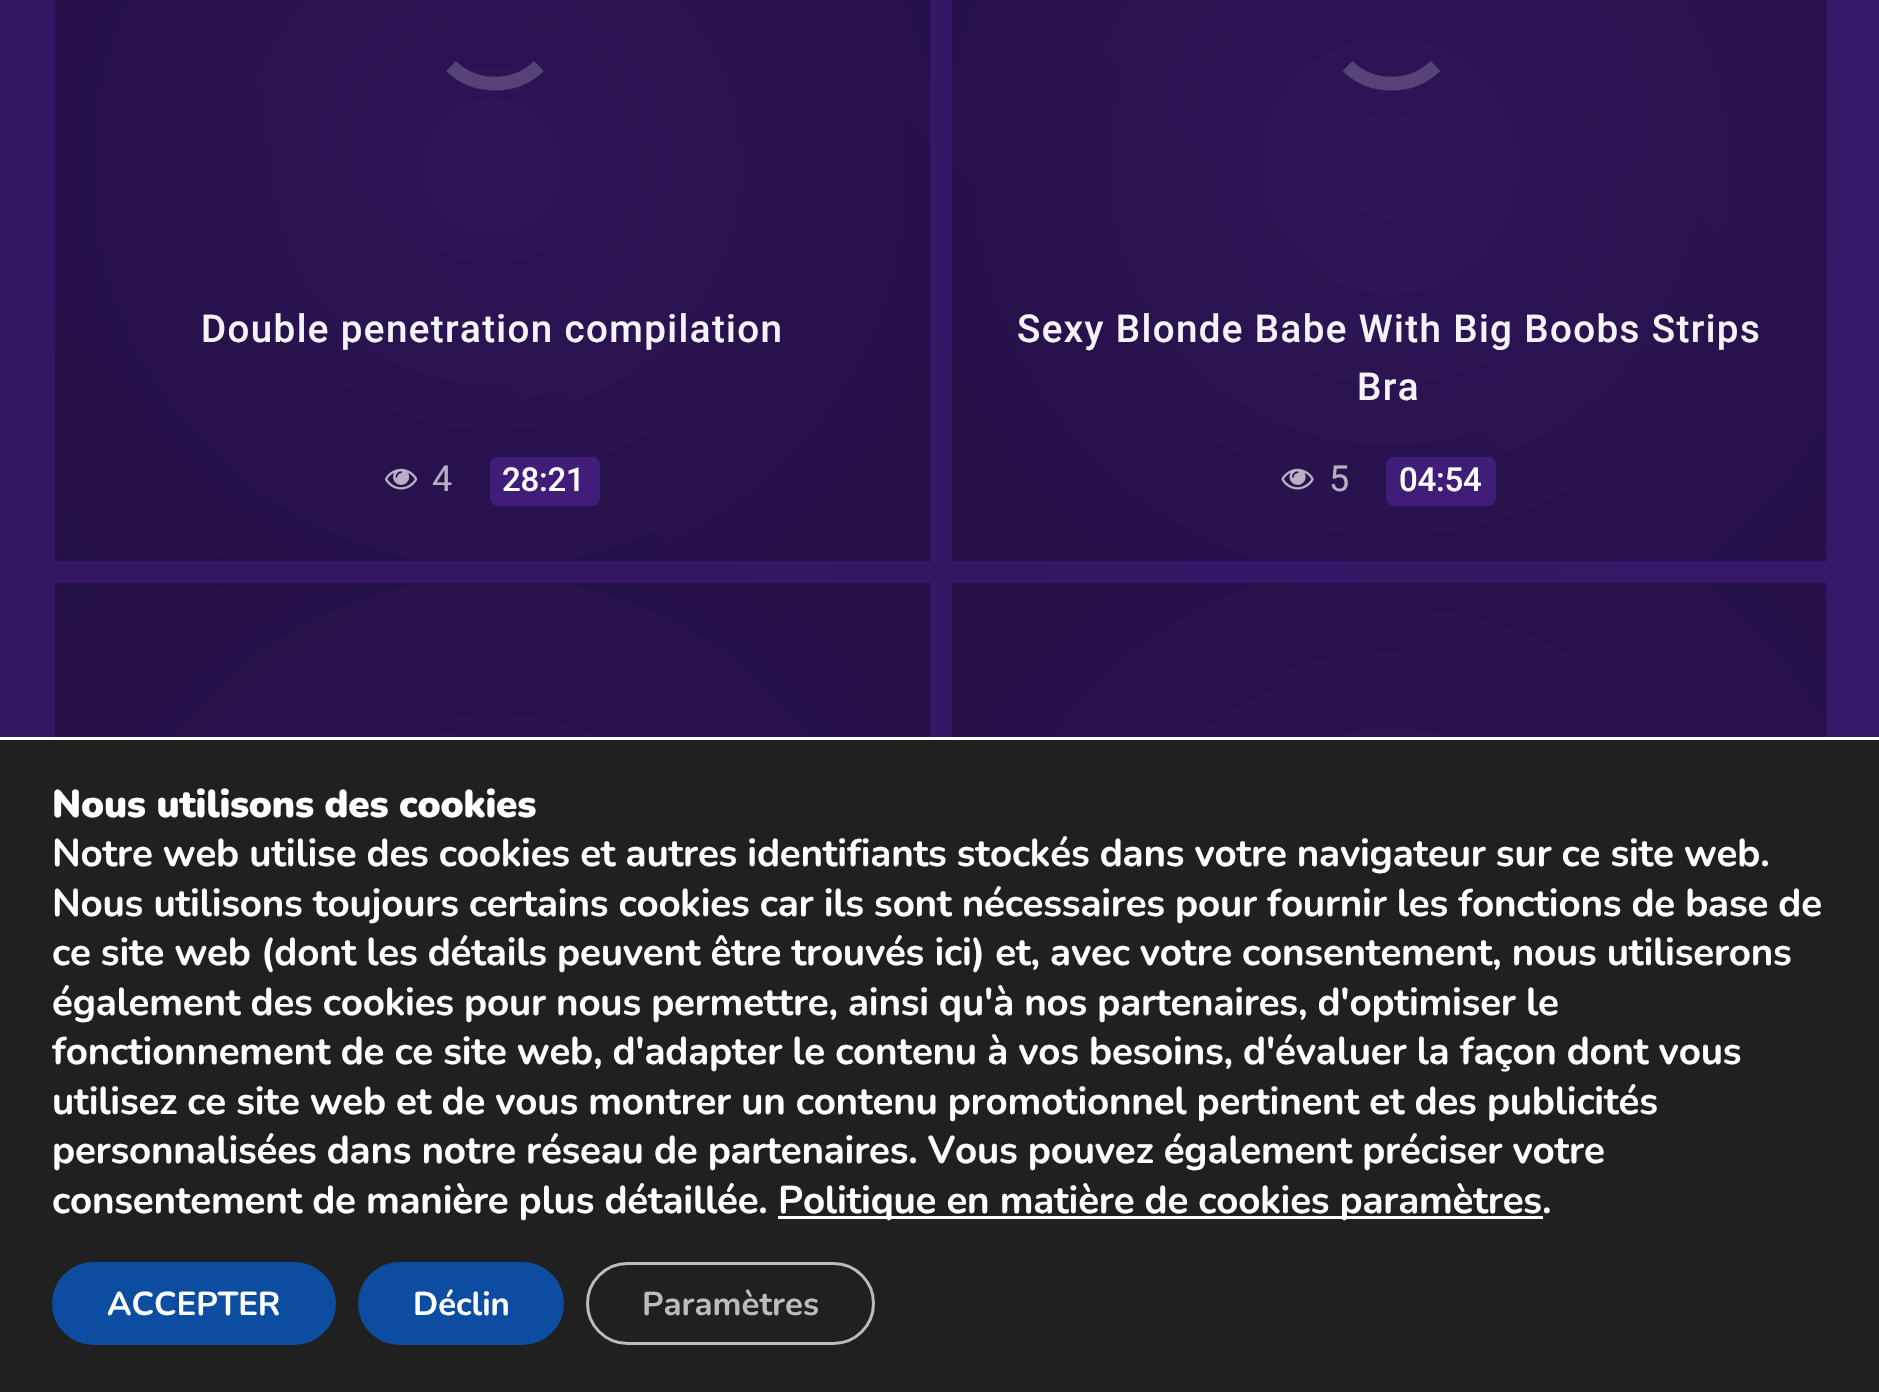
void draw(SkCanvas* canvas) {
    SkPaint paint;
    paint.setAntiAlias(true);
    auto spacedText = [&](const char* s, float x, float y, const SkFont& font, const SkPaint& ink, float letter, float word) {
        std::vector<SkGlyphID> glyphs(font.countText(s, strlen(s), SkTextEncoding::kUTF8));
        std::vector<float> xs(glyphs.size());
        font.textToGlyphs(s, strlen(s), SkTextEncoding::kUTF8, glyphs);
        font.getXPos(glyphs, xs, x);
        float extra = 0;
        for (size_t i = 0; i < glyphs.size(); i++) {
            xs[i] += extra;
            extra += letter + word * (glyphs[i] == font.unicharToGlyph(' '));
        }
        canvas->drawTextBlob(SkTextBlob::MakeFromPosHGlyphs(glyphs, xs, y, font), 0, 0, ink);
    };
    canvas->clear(0xFFFFFFFF);
    {
        const SkColor colors[] = {0xFF200E3E, 0xFF401D7D};
        const float stops[] = {0, 1};
        const SkPoint ends[] = {{-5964, 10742}, {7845, -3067}};
        paint.setShader(SkGradientShader::MakeLinear(ends, colors, stops, 2, SkTileMode::kClamp));
        paint.setAlpha(255);
    }
    canvas->drawRect(SkRect::MakeXYWH(0, 0, 1879, 737), paint);
    {
        const SkColor colors[] = {0x26000000, 0x4D000000};
        const float stops[] = {0, 1};
        paint.setShader(SkGradientShader::MakeRadial({492, 166}, 589, colors, stops, 2, SkTileMode::kClamp));
        paint.setAlpha(255);
    }
    canvas->drawRect(SkRect::MakeXYWH(55, 0, 875, 561), paint);
    paint.setStyle(SkPaint::kStroke_Style);
    paint.setStrokeWidth(13.8f);
    paint.setShader(nullptr);
    paint.setColor(0xFF554276);
    canvas->drawPath(SkPathBuilder().moveTo(539, 66).cubicTo(515, 89.5f, 475, 89.5f, 451, 66).detach(), paint);
    SkFont font1(fontMgr->matchFamilyStyle("Roboto", SkFontStyle(500, SkFontStyle::kNormal_Width, SkFontStyle::kUpright_Slant)), 38.5f);
    font1.setSubpixel(true);
    paint.setStyle(SkPaint::kFill_Style);
    paint.setColor(0xFFF4F3F6);
    spacedText("Double penetration compilation", 201, 342, font1, paint, 1.4f, 0);
    canvas->drawImageRect(SkImages::DeferredFromEncodedData(SkData::MakeFromFileName("img1.png")), SkRect::MakeXYWH(385, 468, 33, 22), SkSamplingOptions());
    SkFont font2(fontMgr->matchFamilyStyle("Roboto", SkFontStyle::Normal()), 36);
    font2.setSubpixel(true);
    paint.setColor(0xFFB6B0C4);
    spacedText("4", 432, 491, font2, paint, -0.22f, 0);
    paint.setColor(0xFF3F1D78);
    canvas->drawRoundRect(SkRect::MakeXYWH(490, 457, 110, 49), 8, 8, paint);
    SkFont font3(fontMgr->matchFamilyStyle("Roboto", SkFontStyle(500, SkFontStyle::kNormal_Width, SkFontStyle::kUpright_Slant)), 33);
    font3.setSubpixel(true);
    paint.setColor(0xFFFFFFFF);
    spacedText("28:21", 502, 491, font3, paint, -0.22f, 0);
    {
        const SkColor colors[] = {0x26000000, 0x4D000000};
        const float stops[] = {0, 1};
        paint.setShader(SkGradientShader::MakeRadial({1389, 166}, 589, colors, stops, 2, SkTileMode::kClamp));
        paint.setAlpha(255);
    }
    canvas->drawRect(SkRect::MakeXYWH(952, 0, 874, 561), paint);
    paint.setStyle(SkPaint::kStroke_Style);
    paint.setShader(nullptr);
    paint.setColor(0xFF564377);
    canvas->drawPath(SkPathBuilder().moveTo(1435.5f, 66).cubicTo(1411.5f, 89.5f, 1371.5f, 89.5f, 1347.5f, 66).detach(), paint);
    paint.setStyle(SkPaint::kFill_Style);
    paint.setColor(0xFFF4F3F6);
    spacedText("Sexy Blonde Babe With Big Boobs Strips", 1017, 342, font1, paint, 1.4f, 0);
    spacedText("Bra", 1357, 400, font1, paint, 1.4f, 0);
    canvas->drawImageRect(SkImages::DeferredFromEncodedData(SkData::MakeFromFileName("img2.png")), SkRect::MakeXYWH(1281, 468, 33, 22), SkSamplingOptions());
    paint.setColor(0xFFB6B0C4);
    spacedText("5", 1329, 491, font2, paint, -0.22f, 0);
    paint.setColor(0xFF3F1D78);
    canvas->drawRoundRect(SkRect::MakeXYWH(1386, 457, 110, 49), 8, 8, paint);
    paint.setColor(0xFFFFFFFF);
    spacedText("04:54", 1399, 491, font3, paint, -0.22f, 0);
    {
        const SkColor colors[] = {0x26000000, 0x4D000000};
        const float stops[] = {0, 1};
        paint.setShader(SkGradientShader::MakeRadial({492, 978}, 589, colors, stops, 2, SkTileMode::kClamp));
        paint.setAlpha(255);
    }
    canvas->drawRect(SkRect::MakeXYWH(55, 583, 875, 154), paint);
    {
        const SkColor colors[] = {0x26000000, 0x4D000000};
        const float stops[] = {0, 1};
        paint.setShader(SkGradientShader::MakeRadial({1389, 978}, 589, colors, stops, 2, SkTileMode::kClamp));
        paint.setAlpha(255);
    }
    canvas->drawRect(SkRect::MakeXYWH(952, 583, 874, 154), paint);
    paint.setShader(nullptr);
    paint.setColor(0xFF202020);
    canvas->drawRect(SkRect::MakeXYWH(0, 740, 1879, 652), paint);
    SkFont font4(fontMgr->matchFamilyStyle("Nunito", SkFontStyle(900, SkFontStyle::kNormal_Width, SkFontStyle::kUpright_Slant)), 38.5f);
    font4.setSubpixel(true);
    paint.setColor(0xFFFFFFFF);
    spacedText("Nous utilisons des cookies", 52, 817, font4, paint, -0.22f, 0);
    SkFont font5(fontMgr->matchFamilyStyle("Nunito", SkFontStyle::Bold()), 38.5f);
    font5.setSubpixel(true);
    spacedText("Notre web utilise des cookies et autres identifiants stockés dans votre navigateur sur ce site web.", 52, 866, font5, paint, -0.22f, 0);
    spacedText("Nous utilisons toujours certains cookies car ils sont nécessaires pour fournir les fonctions de base de", 52, 916, font5, paint, -0.22f, 0);
    spacedText("ce site web (dont les détails peuvent être trouvés ici) et, avec votre consentement, nous utiliserons", 52, 965, font5, paint, -0.22f, 0);
    spacedText("également des cookies pour nous permettre, ainsi qu'à nos partenaires, d'optimiser le", 52, 1015, font5, paint, -0.22f, 0);
    spacedText("fonctionnement de ce site web, d'adapter le contenu à vos besoins, d'évaluer la façon dont vous", 52, 1064, font5, paint, -0.22f, 0);
    spacedText("utilisez ce site web et de vous montrer un contenu promotionnel pertinent et des publicités", 52, 1114, font5, paint, -0.22f, 0);
    spacedText("personnalisées dans notre réseau de partenaires. Vous pouvez également préciser votre", 52, 1163, font5, paint, -0.22f, 0);
    spacedText("consentement de manière plus détaillée.", 52, 1213, font5, paint, -0.22f, 0);
    canvas->drawRect(SkRect::MakeXYWH(778, 1216, 765, 3), paint);
    spacedText("Politique en matière de cookies paramètres.", 778, 1213, font5, paint, -0.22f, 0);
    paint.setColor(0xFF0C4DA2);
    canvas->drawRoundRect(SkRect::MakeXYWH(52, 1262, 284, 83), 41.5f, 41.5f, paint);
    SkFont font6(fontMgr->matchFamilyStyle("Nunito", SkFontStyle::Bold()), 33);
    font6.setSubpixel(true);
    paint.setColor(0xFFFFFFFF);
    canvas->drawString("ACCEPTER", 107, 1315, font6, paint);
    paint.setColor(0xFF0C4DA2);
    canvas->drawRoundRect(SkRect::MakeXYWH(358, 1262, 206, 83), 41.5f, 41.5f, paint);
    paint.setColor(0xFFFFFFFF);
    canvas->drawString("Déclin", 413, 1315, font6, paint);
    paint.setStyle(SkPaint::kStroke_Style);
    paint.setStrokeWidth(3);
    paint.setColor(0xFFBCBCBC);
    canvas->drawRoundRect(SkRect::MakeXYWH(587.5f, 1263.5f, 286, 80), 40, 40, paint);
    paint.setStyle(SkPaint::kFill_Style);
    canvas->drawString("Paramètres", 642, 1315, font6, paint);
}
